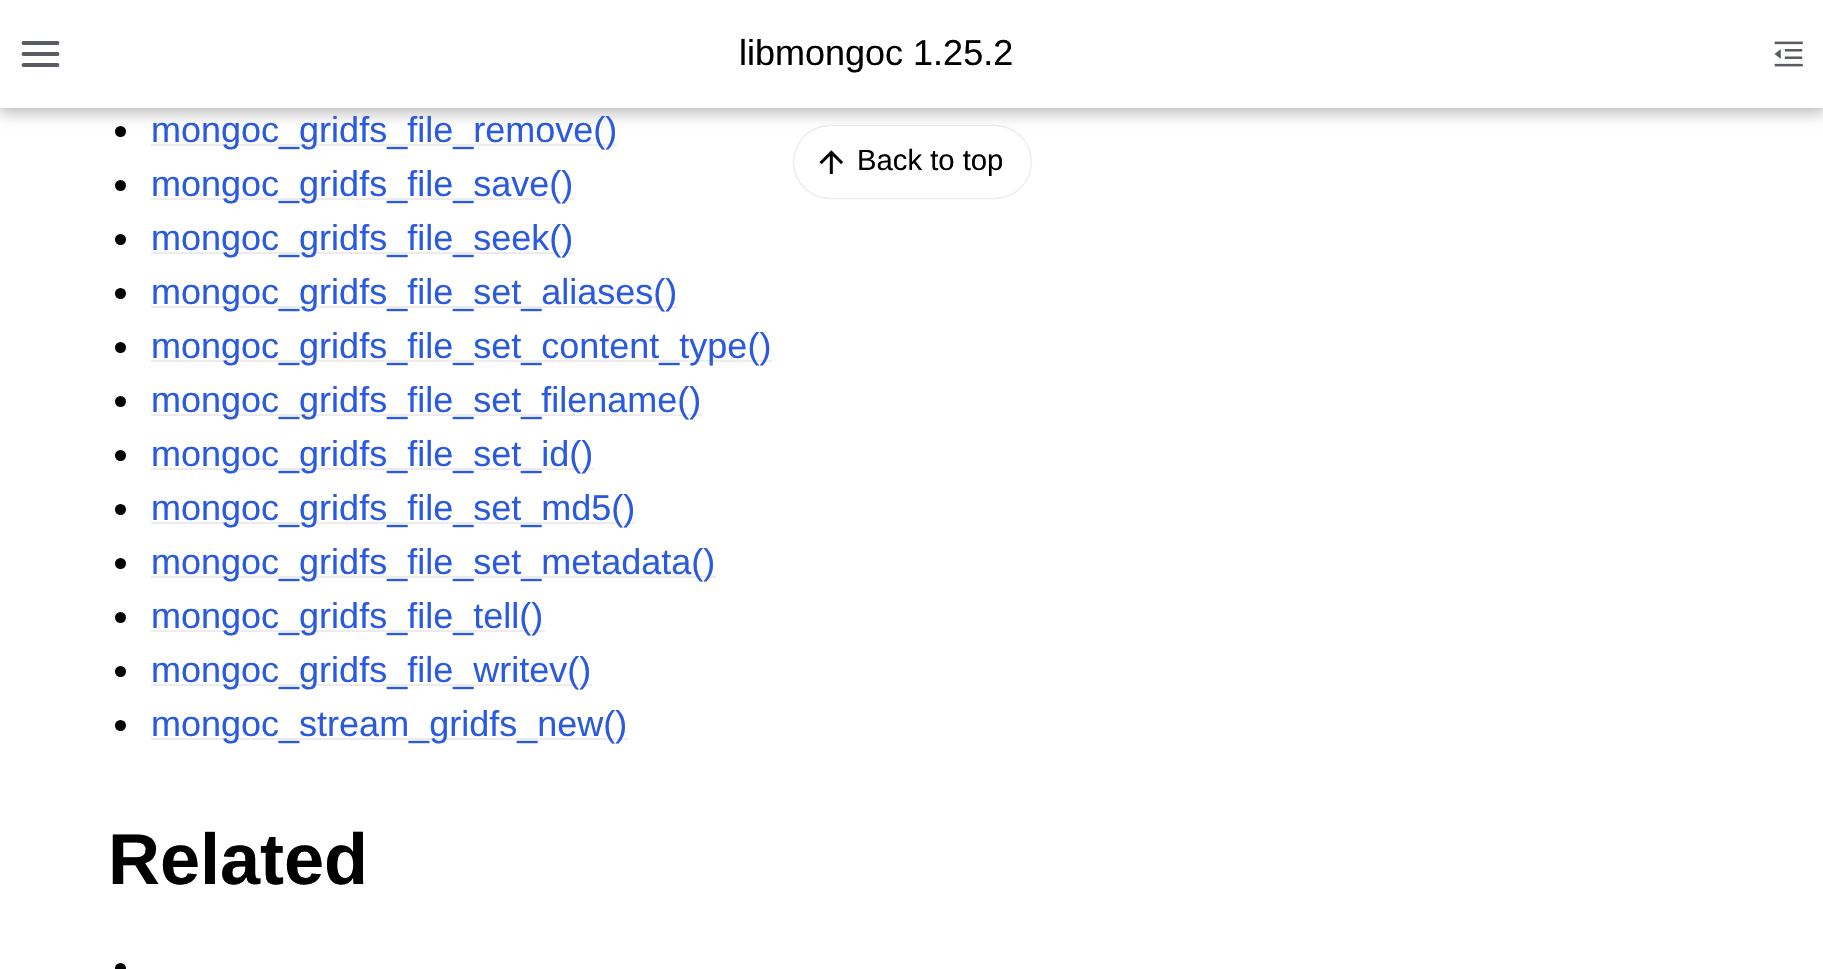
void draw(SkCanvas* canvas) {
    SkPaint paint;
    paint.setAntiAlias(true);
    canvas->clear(0xFFFFFFFF);
    paint.setColor(0xFF000000);
    canvas->drawCircle(120.5f, 131.5f, 5.5f, paint);
    paint.setColor(0x33000000);
    paint.setMaskFilter(SkMaskFilter::MakeBlur(kNormal_SkBlurStyle, 7));
    canvas->drawRect(SkRect::MakeXYWH(0, 7, 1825, 108), paint);
    paint.setMaskFilter(nullptr);
    paint.setColor(0x1A000000);
    paint.setMaskFilter(SkMaskFilter::MakeBlur(kNormal_SkBlurStyle, 3.5f));
    canvas->drawRect(SkRect::MakeXYWH(0, 0, 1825, 108), paint);
    paint.setMaskFilter(nullptr);
    paint.setColor(0xFFFFFFFF);
    canvas->drawRect(SkRect::MakeXYWH(0, 0, 1823, 108), paint);
    paint.setStyle(SkPaint::kStroke_Style);
    paint.setStrokeWidth(3.8f);
    paint.setStrokeCap(SkPaint::kRound_Cap);
    paint.setStrokeJoin(SkPaint::kRound_Join);
    paint.setColor(0xFF5A5C63);
    canvas->drawPath(SkPathBuilder().moveTo(23.5f, 54).lineTo(57.5f, 54).moveTo(23.5f, 43).lineTo(57.5f, 43).moveTo(23.5f, 65).lineTo(57.5f, 65).detach(), paint);
    SkFont font1(fontMgr->matchFamilyStyle("Liberation Sans", SkFontStyle::Normal()), 36);
    font1.setSubpixel(true);
    paint.setStyle(SkPaint::kFill_Style);
    paint.setColor(0xFF000000);
    canvas->drawString("libmongoc 1.25.2", 739, 65, font1, paint);
    canvas->drawImageRect(SkImages::DeferredFromEncodedData(SkData::MakeFromFileName("img1.png")), SkRect::MakeXYWH(1774, 41, 29, 26), SkSamplingOptions());
    paint.setColor(0xFFEEEBEE);
    canvas->drawRect(SkRect::MakeXYWH(151, 144, 466, 2), paint);
    paint.setColor(0xFF2A5ADF);
    canvas->drawString("mongoc_gridfs_file_remove()", 151, 142, font1, paint);
    paint.setColor(0xFF000000);
    canvas->drawCircle(120.5f, 185.5f, 5.5f, paint);
    paint.setColor(0xFFEEEBEE);
    canvas->drawRect(SkRect::MakeXYWH(151, 198, 423, 2), paint);
    paint.setColor(0xFF2A5ADF);
    canvas->drawString("mongoc_gridfs_file_save()", 151, 196, font1, paint);
    paint.setColor(0xFF000000);
    canvas->drawCircle(120.5f, 239.5f, 5.5f, paint);
    paint.setColor(0xFFEEEBEE);
    canvas->drawRect(SkRect::MakeXYWH(151, 252, 423, 2), paint);
    paint.setColor(0xFF2A5ADF);
    canvas->drawString("mongoc_gridfs_file_seek()", 151, 250, font1, paint);
    paint.setColor(0xFF000000);
    canvas->drawCircle(120.5f, 293.5f, 5.5f, paint);
    paint.setColor(0xFFEEEBEE);
    canvas->drawRect(SkRect::MakeXYWH(151, 306, 526, 2), paint);
    paint.setColor(0xFF2A5ADF);
    canvas->drawString("mongoc_gridfs_file_set_aliases()", 151, 304, font1, paint);
    paint.setColor(0xFF000000);
    canvas->drawCircle(120.5f, 347.5f, 5.5f, paint);
    paint.setColor(0xFFEEEBEE);
    canvas->drawRect(SkRect::MakeXYWH(151, 360, 621, 2), paint);
    paint.setColor(0xFF2A5ADF);
    canvas->drawString("mongoc_gridfs_file_set_content_type()", 151, 358, font1, paint);
    paint.setColor(0xFF000000);
    canvas->drawCircle(120.5f, 401.5f, 5.5f, paint);
    paint.setColor(0xFFEEEBEE);
    canvas->drawRect(SkRect::MakeXYWH(151, 414, 551, 2), paint);
    paint.setColor(0xFF2A5ADF);
    canvas->drawString("mongoc_gridfs_file_set_filename()", 151, 412, font1, paint);
    paint.setColor(0xFF000000);
    canvas->drawCircle(120.5f, 455.5f, 5.5f, paint);
    paint.setColor(0xFFEEEBEE);
    canvas->drawRect(SkRect::MakeXYWH(151, 468, 443, 2), paint);
    paint.setColor(0xFF2A5ADF);
    canvas->drawString("mongoc_gridfs_file_set_id()", 151, 466, font1, paint);
    paint.setColor(0xFF000000);
    canvas->drawCircle(120.5f, 509.5f, 5.5f, paint);
    paint.setColor(0xFFEEEBEE);
    canvas->drawRect(SkRect::MakeXYWH(151, 522, 484, 2), paint);
    paint.setColor(0xFF2A5ADF);
    canvas->drawString("mongoc_gridfs_file_set_md5()", 151, 520, font1, paint);
    paint.setColor(0xFF000000);
    canvas->drawCircle(120.5f, 563.5f, 5.5f, paint);
    paint.setColor(0xFFEEEBEE);
    canvas->drawRect(SkRect::MakeXYWH(151, 576, 565, 2), paint);
    paint.setColor(0xFF2A5ADF);
    canvas->drawString("mongoc_gridfs_file_set_metadata()", 151, 574, font1, paint);
    paint.setColor(0xFF000000);
    canvas->drawCircle(120.5f, 617.5f, 5.5f, paint);
    paint.setColor(0xFFEEEBEE);
    canvas->drawRect(SkRect::MakeXYWH(151, 630, 394, 2), paint);
    paint.setColor(0xFF2A5ADF);
    canvas->drawString("mongoc_gridfs_file_tell()", 151, 628, font1, paint);
    paint.setColor(0xFF000000);
    canvas->drawCircle(120.5f, 671.5f, 5.5f, paint);
    paint.setColor(0xFFEEEBEE);
    canvas->drawRect(SkRect::MakeXYWH(151, 684, 441, 2), paint);
    paint.setColor(0xFF2A5ADF);
    canvas->drawString("mongoc_gridfs_file_writev()", 151, 682, font1, paint);
    paint.setColor(0xFF000000);
    canvas->drawCircle(120.5f, 725.5f, 5.5f, paint);
    paint.setColor(0xFFEEEBEE);
    canvas->drawRect(SkRect::MakeXYWH(151, 738, 477, 2), paint);
    paint.setColor(0xFF2A5ADF);
    canvas->drawString("mongoc_stream_gridfs_new()", 151, 736, font1, paint);
    SkFont font2(fontMgr->matchFamilyStyle("Liberation Sans", SkFontStyle::Bold()), 72);
    font2.setSubpixel(true);
    paint.setColor(0xFF000000);
    canvas->drawString("Related", 108, 884, font2, paint);
    canvas->drawCircle(120.5f, 968.5f, 5.5f, paint);
    paint.setColor(0x806B7280);
    paint.setMaskFilter(SkMaskFilter::MakeBlur(kNormal_SkBlurStyle, 1));
    canvas->drawRoundRect(SkRect::MakeXYWH(794, 126, 237, 72), 36, 36, paint);
    paint.setMaskFilter(nullptr);
    paint.setColor(0xFFFFFFFF);
    canvas->drawRoundRect(SkRect::MakeXYWH(794, 126, 237, 72), 36, 36, paint);
    canvas->drawImageRect(SkImages::DeferredFromEncodedData(SkData::MakeFromFileName("img2.png")), SkRect::MakeXYWH(819, 150, 25, 24), SkSamplingOptions());
    SkFont font3(fontMgr->matchFamilyStyle("Liberation Sans", SkFontStyle::Normal()), 29.25f);
    font3.setSubpixel(true);
    paint.setColor(0xFF000000);
    canvas->drawString("Back to top", 857, 170, font3, paint);
}
